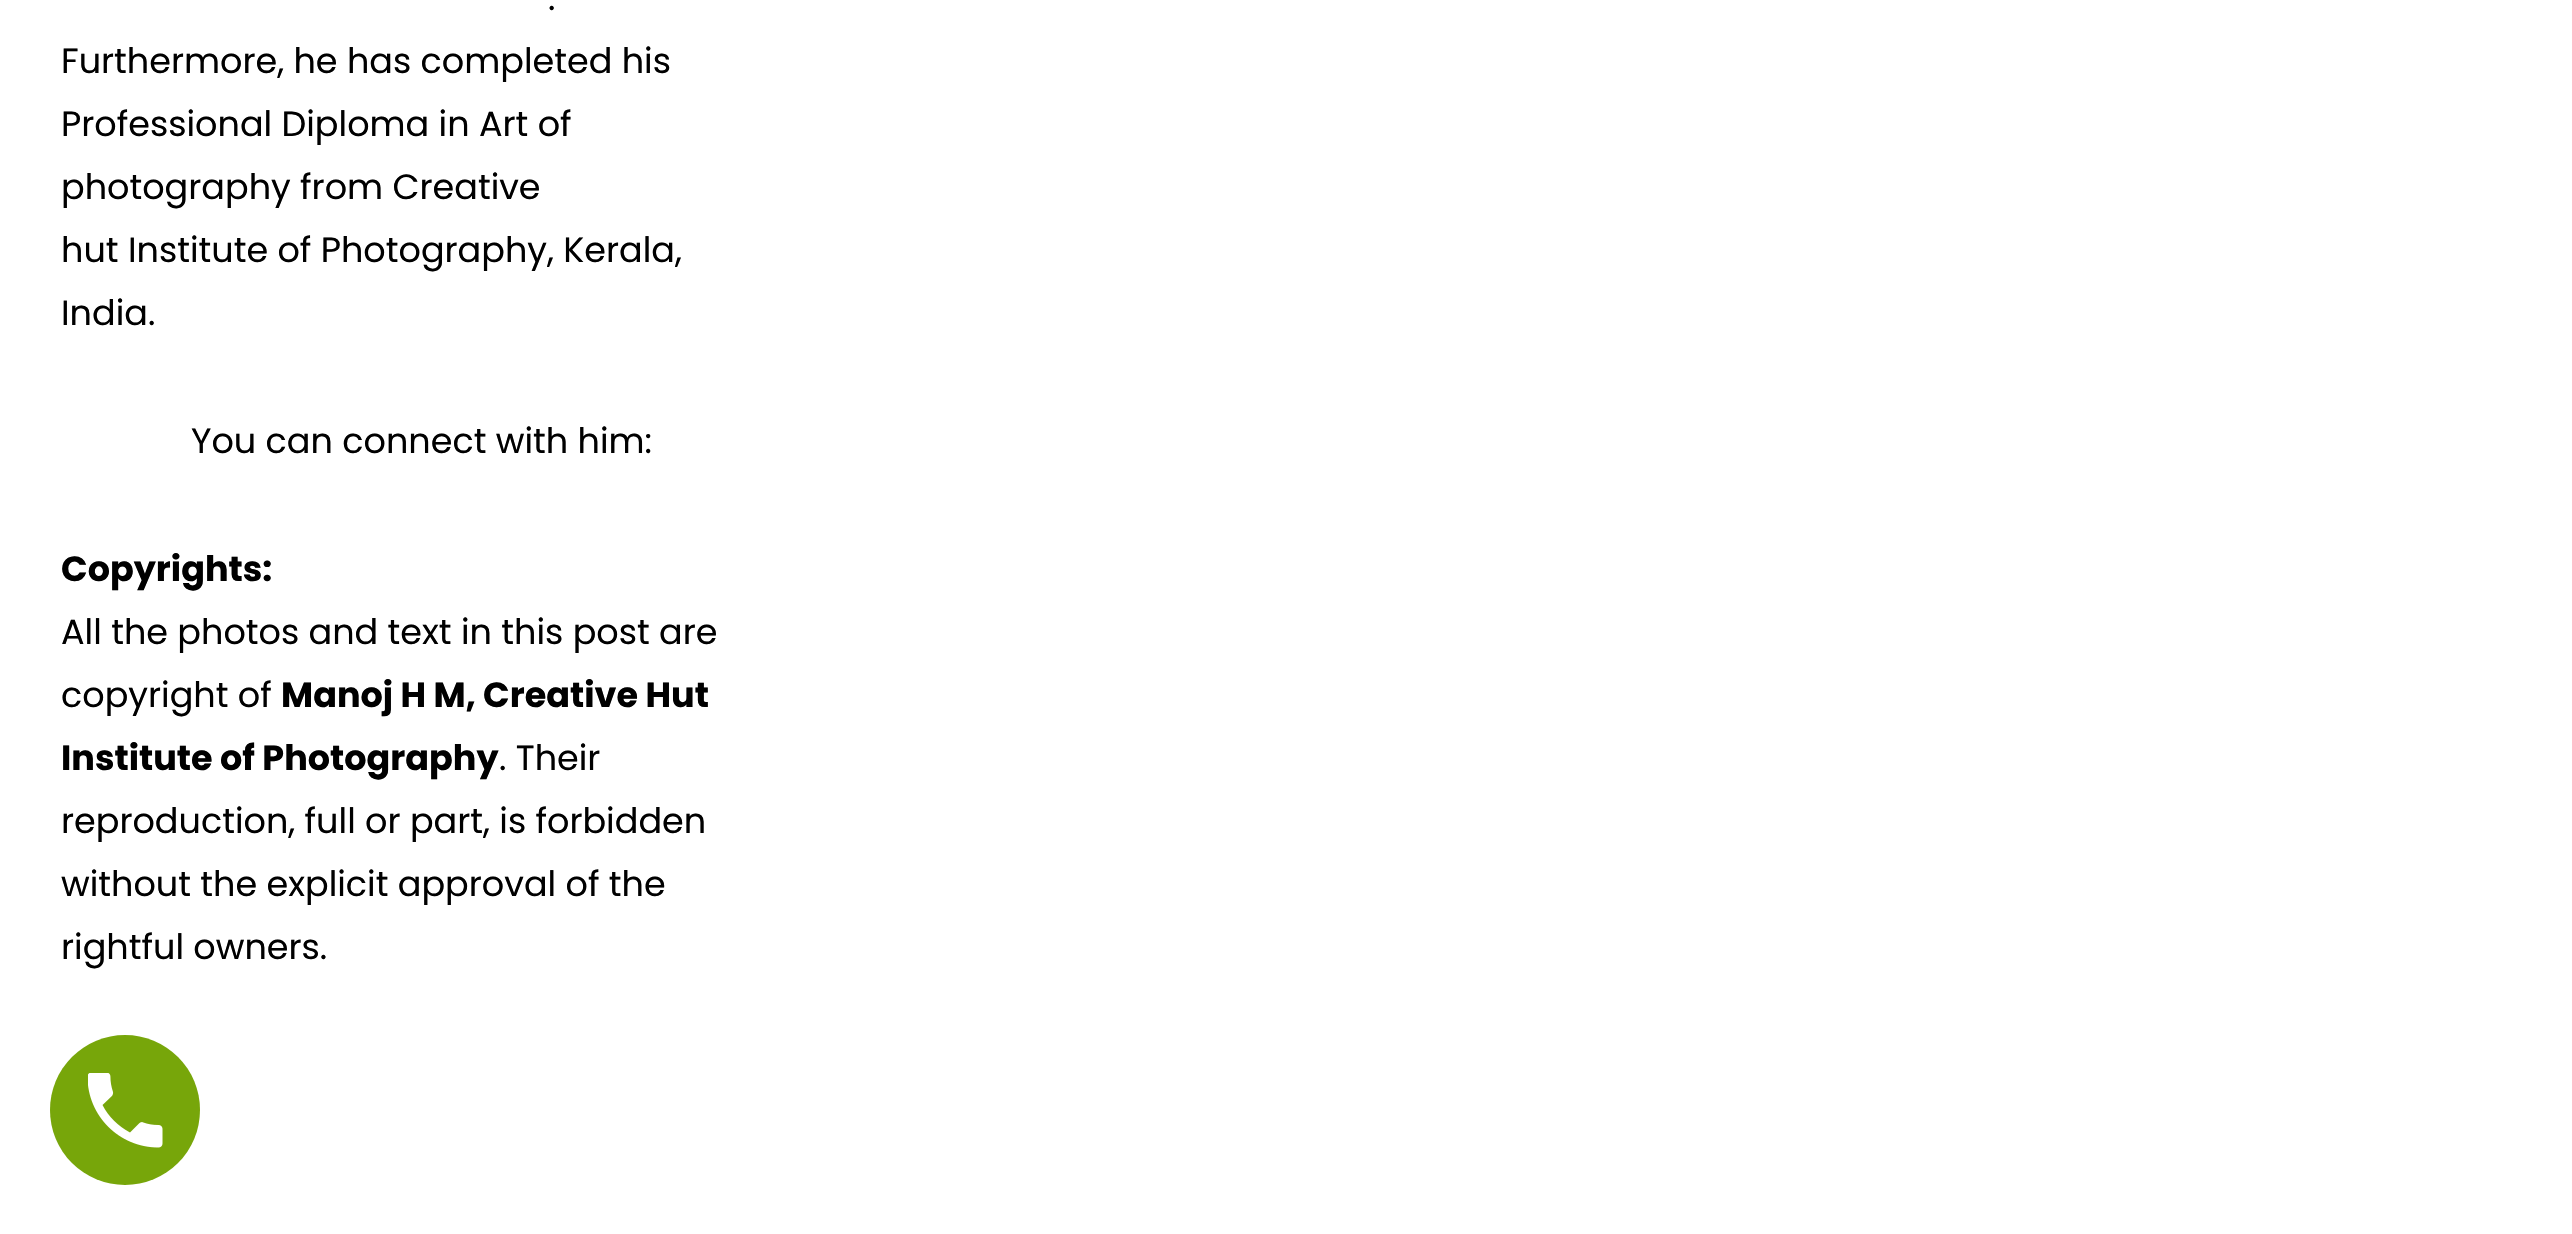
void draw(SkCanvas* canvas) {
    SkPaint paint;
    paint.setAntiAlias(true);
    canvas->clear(0xFFFFFFFF);
    SkFont font1(fontMgr->matchFamilyStyle("Poppins", SkFontStyle::Normal()), 35);
    font1.setSubpixel(true);
    paint.setColor(0xFF000000);
    canvas->drawString(".", 548, 10, font1, paint);
    canvas->drawString("Furthermore, he has completed his", 61, 73, font1, paint);
    canvas->drawString("Professional Diploma in Art of", 61, 136, font1, paint);
    canvas->drawString("photography from Creative", 61, 199, font1, paint);
    canvas->drawString("hut Institute of Photography, Kerala,", 61, 262, font1, paint);
    canvas->drawString("India.", 61, 325, font1, paint);
    canvas->drawString("You can connect with him:", 191, 453, font1, paint);
    SkFont font2(fontMgr->matchFamilyStyle("Poppins", SkFontStyle::Bold()), 35);
    font2.setSubpixel(true);
    canvas->drawString("Copyrights:", 61, 581, font2, paint);
    canvas->drawString("All the photos and text in this post are", 61, 644, font1, paint);
    canvas->drawString("copyright of", 61, 707, font1, paint);
    canvas->drawString("Manoj H M, Creative Hut", 281, 707, font2, paint);
    canvas->drawString("Institute of Photography", 61, 770, font2, paint);
    canvas->drawString(". Their", 499, 770, font1, paint);
    canvas->drawString("reproduction, full or part, is forbidden", 61, 833, font1, paint);
    canvas->drawString("without the explicit approval of the", 61, 896, font1, paint);
    canvas->drawString("rightful owners.", 61, 959, font1, paint);
    paint.setColor(0xFF77A60A);
    canvas->drawCircle(125, 1110, 75, paint);
    canvas->drawImageRect(SkImages::DeferredFromEncodedData(SkData::MakeFromFileName("img1.png")), SkRect::MakeXYWH(88, 1073, 75, 75), SkSamplingOptions());
}
